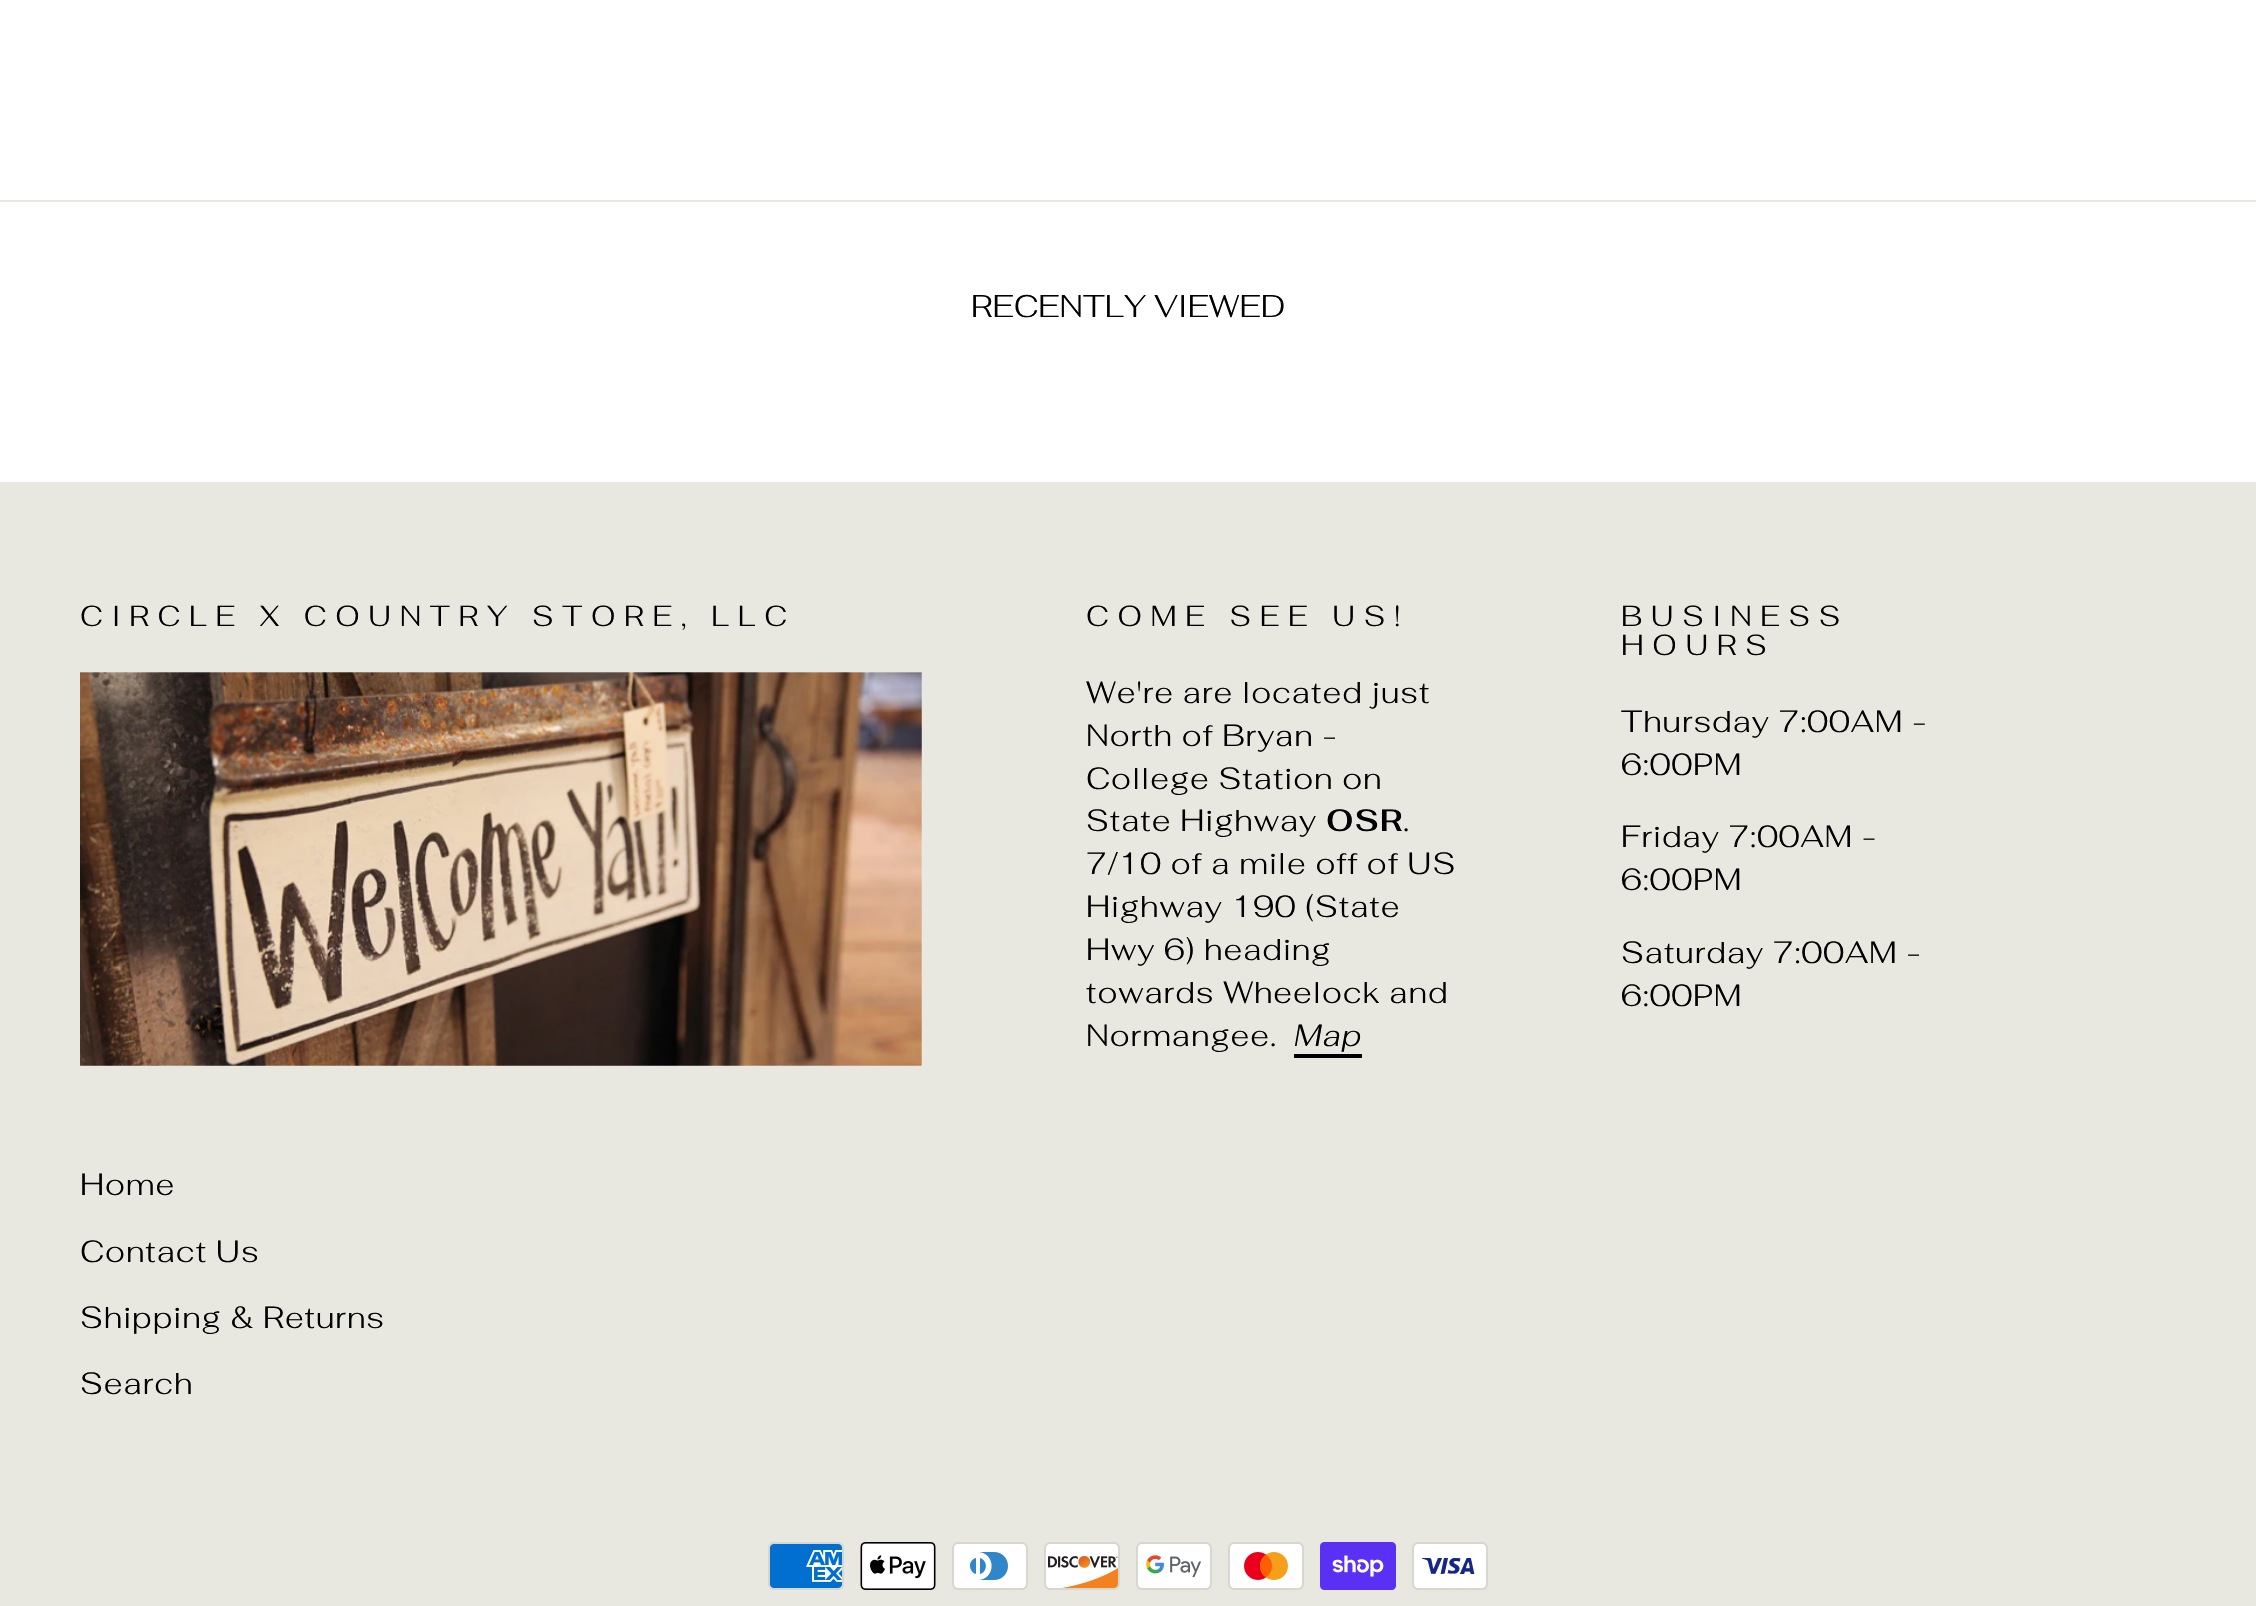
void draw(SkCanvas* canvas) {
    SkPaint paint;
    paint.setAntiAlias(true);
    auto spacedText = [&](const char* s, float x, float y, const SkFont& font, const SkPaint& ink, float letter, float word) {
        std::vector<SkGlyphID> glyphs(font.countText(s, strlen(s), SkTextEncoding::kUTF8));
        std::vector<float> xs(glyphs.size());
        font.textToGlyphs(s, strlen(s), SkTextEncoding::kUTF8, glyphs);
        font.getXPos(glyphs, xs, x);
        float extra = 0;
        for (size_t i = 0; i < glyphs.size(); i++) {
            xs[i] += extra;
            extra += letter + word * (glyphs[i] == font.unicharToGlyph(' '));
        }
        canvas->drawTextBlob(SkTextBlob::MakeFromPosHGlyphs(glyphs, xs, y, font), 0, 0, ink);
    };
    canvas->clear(0xFFFFFFFF);
    paint.setColor(0xFFE8E8E1);
    canvas->drawRect(SkRect::MakeXYWH(0, 200, 2256, 2), paint);
    SkFont font1(fontMgr->matchFamilyStyle("Fahkwang", SkFontStyle(300, SkFontStyle::kNormal_Width, SkFontStyle::kUpright_Slant)), 31.25f);
    font1.setSubpixel(true);
    paint.setColor(0xFF000000);
    canvas->drawString("RECENTLY VIEWED", 971, 317, font1, paint);
    paint.setColor(0xFFE8E8E1);
    canvas->drawRect(SkRect::MakeXYWH(0, 482, 2256, 1124), paint);
    SkFont font2(fontMgr->matchFamilyStyle("Fahkwang", SkFontStyle(300, SkFontStyle::kNormal_Width, SkFontStyle::kUpright_Slant)), 28.8f);
    font2.setSubpixel(true);
    paint.setColor(0xFF000000);
    spacedText("CIRCLE X COUNTRY STORE, LLC", 80, 626, font2, paint, 8.65f, 0);
    paint.setColor(0xFFFFFFFF);
    canvas->drawRect(SkRect::MakeXYWH(80, 672, 842, 394), paint);
    canvas->drawImageRect(SkImages::DeferredFromEncodedData(SkData::MakeFromFileName("img1.png")), SkRect::MakeXYWH(80, 672, 842, 394), SkSamplingOptions());
    paint.setColor(0xFF000000);
    spacedText("COME SEE US!", 1086, 626, font2, paint, 8.65f, 0);
    SkFont font3(fontMgr->matchFamilyStyle("Fahkwang", SkFontStyle(300, SkFontStyle::kNormal_Width, SkFontStyle::kUpright_Slant)), 30.6f);
    font3.setSubpixel(true);
    spacedText("We're are located just", 1086, 703, font3, paint, 0.9f, 0);
    spacedText("North of Bryan -", 1086, 746, font3, paint, 0.9f, 0);
    spacedText("College Station on", 1086, 789, font3, paint, 0.9f, 0);
    spacedText("State Highway", 1086, 831, font3, paint, 0.9f, 0);
    SkFont font4(fontMgr->matchFamilyStyle("Fahkwang", SkFontStyle(600, SkFontStyle::kNormal_Width, SkFontStyle::kUpright_Slant)), 30.6f);
    font4.setSubpixel(true);
    spacedText("OSR", 1326, 831, font4, paint, 0.9f, 0);
    spacedText(".", 1403, 831, font3, paint, 0.9f, 0);
    spacedText("7/10 of a mile off of US", 1086, 874, font3, paint, 0.9f, 0);
    spacedText("Highway 190 (State", 1086, 917, font3, paint, 0.9f, 0);
    spacedText("Hwy 6) heading", 1086, 960, font3, paint, 0.9f, 0);
    spacedText("towards Wheelock and", 1086, 1003, font3, paint, 0.9f, 0);
    spacedText("Normangee.", 1086, 1046, font3, paint, 0.9f, 0);
    SkFont font5(fontMgr->matchFamilyStyle("Fahkwang", SkFontStyle(300, SkFontStyle::kNormal_Width, SkFontStyle::kItalic_Slant)), 30.6f);
    font5.setSubpixel(true);
    spacedText("Map", 1294, 1046, font5, paint, 0.9f, 0);
    canvas->drawRect(SkRect::MakeXYWH(1294, 1054, 68, 4), paint);
    spacedText("BUSINESS", 1621, 626, font2, paint, 8.65f, 0);
    spacedText("HOURS", 1621, 655, font2, paint, 8.65f, 0);
    spacedText("Thursday 7:00AM -", 1621, 732, font3, paint, 0.9f, 0);
    spacedText("6:00PM", 1621, 775, font3, paint, 0.9f, 0);
    spacedText("Friday 7:00AM -", 1621, 847, font3, paint, 0.9f, 0);
    spacedText("6:00PM", 1621, 890, font3, paint, 0.9f, 0);
    spacedText("Saturday 7:00AM -", 1621, 963, font3, paint, 0.9f, 0);
    spacedText("6:00PM", 1621, 1006, font3, paint, 0.9f, 0);
    spacedText("Home", 80, 1195, font3, paint, 0.9f, 0);
    spacedText("Contact Us", 80, 1262, font3, paint, 0.9f, 0);
    spacedText("Shipping & Returns", 80, 1328, font3, paint, 0.9f, 0);
    spacedText("Search", 80, 1394, font3, paint, 0.9f, 0);
    canvas->drawImageRect(SkImages::DeferredFromEncodedData(SkData::MakeFromFileName("img2.png")), SkRect::MakeXYWH(768, 1542, 76, 48), SkSamplingOptions());
    canvas->drawImageRect(SkImages::DeferredFromEncodedData(SkData::MakeFromFileName("img3.png")), SkRect::MakeXYWH(860, 1542, 76, 48), SkSamplingOptions());
    canvas->drawImageRect(SkImages::DeferredFromEncodedData(SkData::MakeFromFileName("img4.png")), SkRect::MakeXYWH(952, 1542, 76, 48), SkSamplingOptions());
    canvas->drawImageRect(SkImages::DeferredFromEncodedData(SkData::MakeFromFileName("img5.png")), SkRect::MakeXYWH(1044, 1542, 76, 48), SkSamplingOptions());
    canvas->drawImageRect(SkImages::DeferredFromEncodedData(SkData::MakeFromFileName("img6.png")), SkRect::MakeXYWH(1136, 1542, 76, 48), SkSamplingOptions());
    canvas->drawImageRect(SkImages::DeferredFromEncodedData(SkData::MakeFromFileName("img7.png")), SkRect::MakeXYWH(1228, 1542, 76, 48), SkSamplingOptions());
    canvas->drawImageRect(SkImages::DeferredFromEncodedData(SkData::MakeFromFileName("img8.png")), SkRect::MakeXYWH(1320, 1542, 76, 48), SkSamplingOptions());
    canvas->drawImageRect(SkImages::DeferredFromEncodedData(SkData::MakeFromFileName("img9.png")), SkRect::MakeXYWH(1412, 1542, 76, 48), SkSamplingOptions());
}
